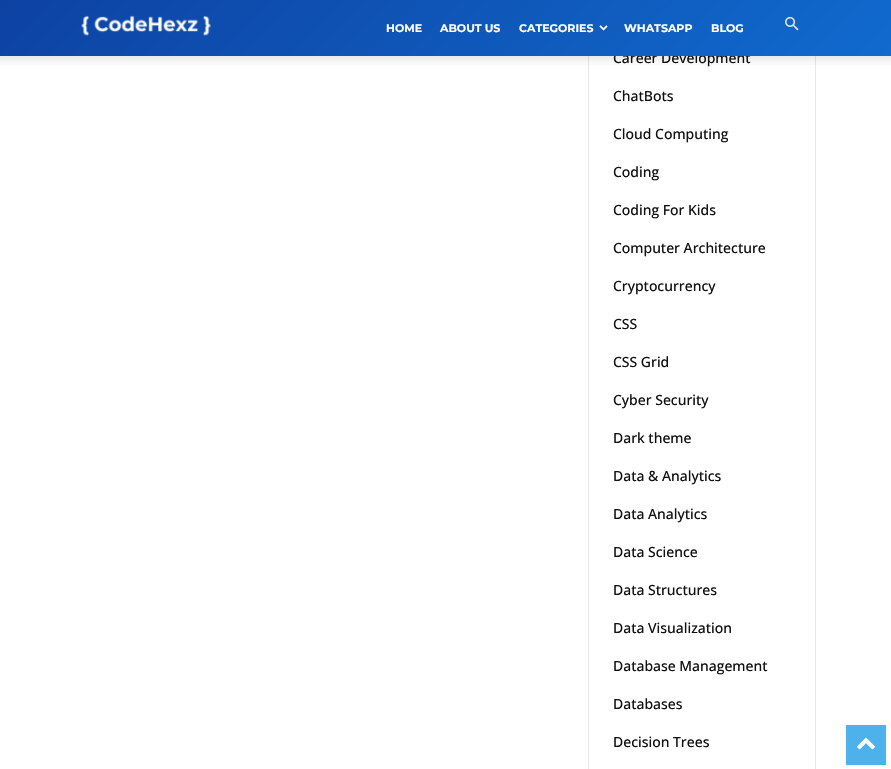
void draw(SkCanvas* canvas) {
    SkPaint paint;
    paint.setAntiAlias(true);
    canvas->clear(0xFFFFFFFF);
    paint.setStyle(SkPaint::kStroke_Style);
    paint.setStrokeWidth(1);
    paint.setColor(0xFFE7E7E7);
    canvas->drawRect(SkRect::MakeXYWH(588.5f, -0.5f, 227, 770), paint);
    SkFont font1(fontMgr->matchFamilyStyle("Open Sans", SkFontStyle(500, SkFontStyle::kNormal_Width, SkFontStyle::kUpright_Slant)), 14);
    font1.setSubpixel(true);
    paint.setStyle(SkPaint::kFill_Style);
    paint.setColor(0xFF111111);
    canvas->drawString("Career Development", 613, 63, font1, paint);
    {
        const SkColor colors[] = {0xFF116ACE, 0xFF0D42A2};
        const float stops[] = {0, 1};
        const SkPoint ends[] = {{682, 265}, {209, -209}};
        paint.setShader(SkGradientShader::MakeLinear(ends, colors, stops, 2, SkTileMode::kClamp));
        paint.setAlpha(255);
    }
    canvas->drawRect(SkRect::MakeXYWH(0, 0, 891, 56), paint);
    canvas->drawImageRect(SkImages::DeferredFromEncodedData(SkData::MakeFromFileName("img1.png")), SkRect::MakeXYWH(81, 15, 130, 21), SkSamplingOptions());
    SkFont font2(fontMgr->matchFamilyStyle("Montserrat", SkFontStyle::Bold()), 11);
    font2.setSubpixel(true);
    paint.setShader(nullptr);
    paint.setColor(0xFFFFFFFF);
    canvas->drawString("HOME", 386, 32, font2, paint);
    canvas->drawString("ABOUT US", 440, 32, font2, paint);
    canvas->drawString("CATEGORIES", 519, 32, font2, paint);
    canvas->drawImageRect(SkImages::DeferredFromEncodedData(SkData::MakeFromFileName("img2.png")), SkRect::MakeXYWH(599, 25, 9, 6), SkSamplingOptions());
    canvas->drawString("WHATSAPP", 624, 32, font2, paint);
    canvas->drawString("BLOG", 711, 32, font2, paint);
    canvas->drawImageRect(SkImages::DeferredFromEncodedData(SkData::MakeFromFileName("img3.png")), SkRect::MakeXYWH(785, 16, 14, 15), SkSamplingOptions());
    canvas->drawImageRect(SkImages::DeferredFromEncodedData(SkData::MakeFromFileName("img4.png")), SkRect::MakeXYWH(0, 56, 891, 9), SkSamplingOptions());
    paint.setColor(0xFF111111);
    canvas->drawString("ChatBots", 613, 101, font1, paint);
    canvas->drawString("Cloud Computing", 613, 139, font1, paint);
    canvas->drawString("Coding", 613, 177, font1, paint);
    canvas->drawString("Coding For Kids", 613, 215, font1, paint);
    canvas->drawString("Computer Architecture", 613, 253, font1, paint);
    canvas->drawString("Cryptocurrency", 613, 291, font1, paint);
    canvas->drawString("CSS", 613, 329, font1, paint);
    canvas->drawString("CSS Grid", 613, 367, font1, paint);
    canvas->drawString("Cyber Security", 613, 405, font1, paint);
    canvas->drawString("Dark theme", 613, 443, font1, paint);
    canvas->drawString("Data & Analytics", 613, 481, font1, paint);
    canvas->drawString("Data Analytics", 613, 519, font1, paint);
    canvas->drawString("Data Science", 613, 557, font1, paint);
    canvas->drawString("Data Structures", 613, 595, font1, paint);
    canvas->drawString("Data Visualization", 613, 633, font1, paint);
    canvas->drawString("Database Management", 613, 671, font1, paint);
    canvas->drawString("Databases", 613, 709, font1, paint);
    canvas->drawString("Decision Trees", 613, 747, font1, paint);
    paint.setColor(0xFF4DB2EC);
    canvas->drawRect(SkRect::MakeXYWH(846, 725, 40, 40), paint);
    canvas->drawImageRect(SkImages::DeferredFromEncodedData(SkData::MakeFromFileName("img5.png")), SkRect::MakeXYWH(857, 737, 18, 13), SkSamplingOptions());
}
